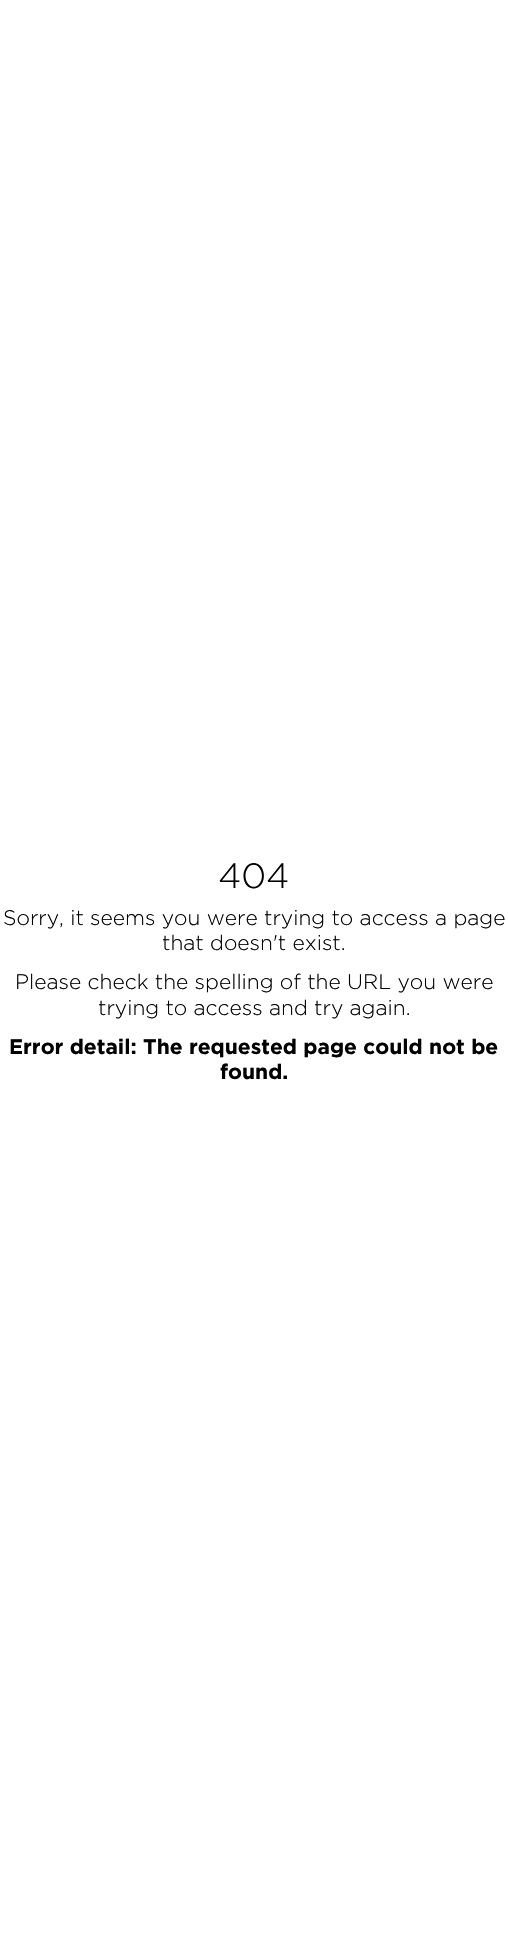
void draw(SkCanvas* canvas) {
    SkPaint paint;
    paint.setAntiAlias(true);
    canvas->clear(0xFFFFFFFF);
    SkFont font1(fontMgr->matchFamilyStyle("Gotham", SkFontStyle(300, SkFontStyle::kNormal_Width, SkFontStyle::kUpright_Slant)), 35);
    font1.setSubpixel(true);
    paint.setColor(0xFF000000);
    canvas->drawString("404", 218, 888, font1, paint);
    SkFont font2(fontMgr->matchFamilyStyle("Gotham", SkFontStyle(300, SkFontStyle::kNormal_Width, SkFontStyle::kUpright_Slant)), 21);
    font2.setSubpixel(true);
    canvas->drawString("Sorry, it seems you were trying to access a page", 3, 925, font2, paint);
    canvas->drawString("that doesn't exist.", 162, 950, font2, paint);
    canvas->drawString("Please check the spelling of the URL you were", 15, 989, font2, paint);
    canvas->drawString("trying to access and try again.", 98, 1015, font2, paint);
    SkFont font3(fontMgr->matchFamilyStyle("Gotham", SkFontStyle::Bold()), 21);
    font3.setSubpixel(true);
    canvas->drawString("Error detail: The requested page could not be", 9, 1054, font3, paint);
    canvas->drawString("found.", 220, 1079, font3, paint);
}
